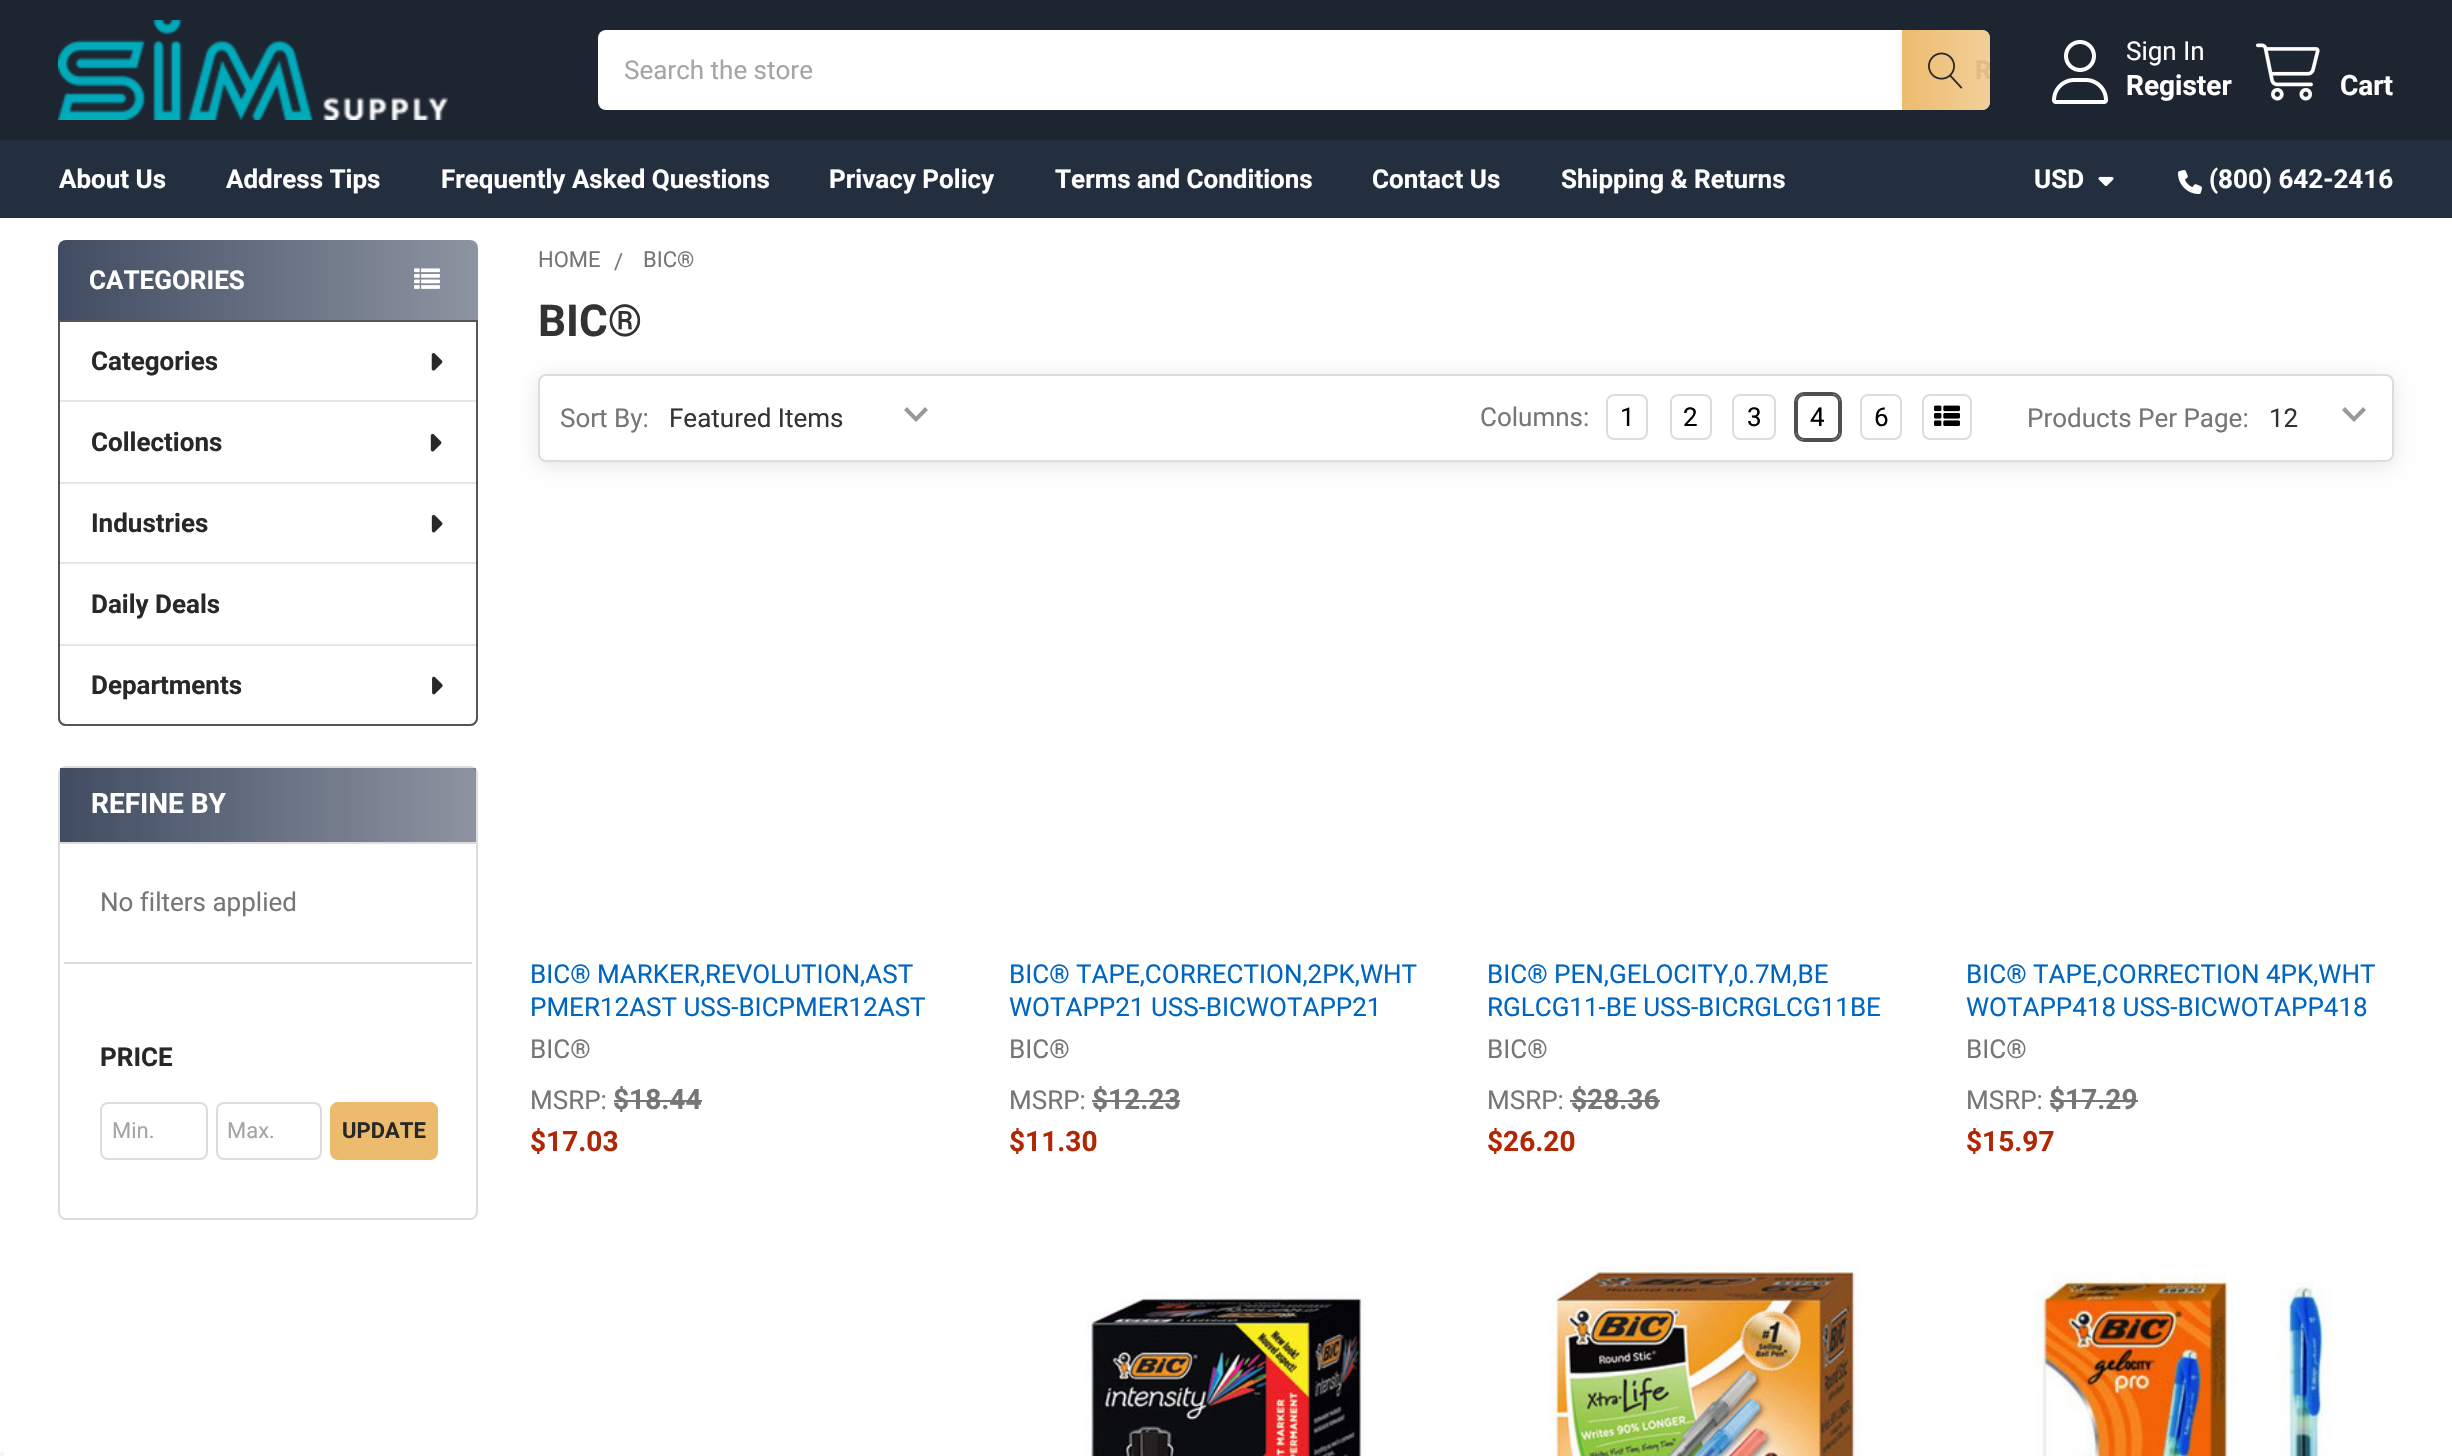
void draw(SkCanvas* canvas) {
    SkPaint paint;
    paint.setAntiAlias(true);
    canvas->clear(0xFFFFFFFF);
    paint.setColor(0xFF1C2530);
    canvas->drawRect(SkRect::MakeXYWH(0, 0, 2452, 140), paint);
    canvas->drawImageRect(SkImages::DeferredFromEncodedData(SkData::MakeFromFileName("img1.png")), SkRect::MakeXYWH(58, 20, 390, 100), SkSamplingOptions());
    paint.setColor(0xFFFFFFFF);
    canvas->drawRoundRect(SkRect::MakeXYWH(598, 30, 1392, 80), 8, 8, paint);
    {
        const SkColor colors[] = {0xFFEDBB6E, 0xB3EDBB6E};
        const float stops[] = {0, 1};
        const SkPoint ends[] = {{1902, 70}, {1990, 70}};
        paint.setShader(SkGradientShader::MakeLinear(ends, colors, stops, 2, SkTileMode::kClamp));
        paint.setAlpha(255);
    }
    canvas->drawPath(SkPathBuilder().moveTo(1902, 30).lineTo(1982, 30).cubicTo(1986.5f, 30, 1990, 33.5f, 1990, 38).lineTo(1990, 102).cubicTo(1990, 106.5f, 1986.5f, 110, 1982, 110).lineTo(1902, 110).close().detach(), paint);
    canvas->drawImageRect(SkImages::DeferredFromEncodedData(SkData::MakeFromFileName("img2.png")), SkRect::MakeXYWH(1928, 52, 35, 37), SkSamplingOptions());
    SkFont font1(fontMgr->matchFamilyStyle("Roboto", SkFontStyle::Normal()), 26);
    font1.setSubpixel(true);
    paint.setShader(nullptr);
    paint.setColor(0xFFA5A5A5);
    canvas->drawString("Search the store", 624, 79, font1, paint);
    canvas->save();
    canvas->clipPath(SkPathBuilder().moveTo(1910, 30).lineTo(1982, 30).cubicTo(1986.5f, 30, 1990, 33.5f, 1990, 38).lineTo(1990, 102).cubicTo(1990, 106.5f, 1986.5f, 110, 1982, 110).lineTo(1910, 110).cubicTo(1905.5f, 110, 1902, 106.5f, 1902, 102).lineTo(1902, 38).cubicTo(1902, 33.5f, 1905.5f, 30, 1910, 30).close().detach(), true);
    SkFont font2(fontMgr->matchFamilyStyle("Roboto", SkFontStyle::Bold()), 26);
    font2.setSubpixel(true);
    paint.setColor(0xFFE0BB83);
    canvas->drawString("R", 1975, 79, font2, paint);
    canvas->restore();
    canvas->drawImageRect(SkImages::DeferredFromEncodedData(SkData::MakeFromFileName("img3.png")), SkRect::MakeXYWH(2052, 40, 56, 64), SkSamplingOptions());
    paint.setColor(0xFFFFFFFF);
    canvas->drawString("Sign In", 2126, 60, font1, paint);
    SkFont font3(fontMgr->matchFamilyStyle("Roboto", SkFontStyle::Bold()), 28);
    font3.setSubpixel(true);
    canvas->drawString("Register", 2126, 95, font3, paint);
    canvas->drawImageRect(SkImages::DeferredFromEncodedData(SkData::MakeFromFileName("img4.png")), SkRect::MakeXYWH(2256, 43, 64, 58), SkSamplingOptions());
    canvas->drawString("Cart", 2340, 95, font3, paint);
    paint.setColor(0xFF232F3E);
    canvas->drawRect(SkRect::MakeXYWH(0, 140, 2452, 78), paint);
    paint.setColor(0xFFFFFFFF);
    canvas->drawString("About Us", 59, 188, font2, paint);
    canvas->drawString("Address Tips", 226, 188, font2, paint);
    canvas->drawString("Frequently Asked Questions", 441, 188, font2, paint);
    canvas->drawString("Privacy Policy", 829, 188, font2, paint);
    canvas->drawString("Terms and Conditions", 1055, 188, font2, paint);
    canvas->drawString("Contact Us", 1372, 188, font2, paint);
    canvas->drawString("Shipping & Returns", 1561, 188, font2, paint);
    canvas->drawString("USD", 2034, 188, font2, paint);
    canvas->drawImageRect(SkImages::DeferredFromEncodedData(SkData::MakeFromFileName("img5.png")), SkRect::MakeXYWH(2098, 176, 16, 10), SkSamplingOptions());
    canvas->drawImageRect(SkImages::DeferredFromEncodedData(SkData::MakeFromFileName("img6.png")), SkRect::MakeXYWH(2178, 170, 24, 24), SkSamplingOptions());
    canvas->drawString("(800) 642-2416", 2209, 188, font2, paint);
    {
        const SkColor colors[] = {0xFF414C62, 0xFF8D94A1};
        const float stops[] = {0, 1};
        const SkPoint ends[] = {{58, 483}, {478, 483}};
        paint.setShader(SkGradientShader::MakeLinear(ends, colors, stops, 2, SkTileMode::kClamp));
        paint.setAlpha(255);
    }
    canvas->drawRoundRect(SkRect::MakeXYWH(58, 240, 420, 486), 8, 8, paint);
    paint.setShader(nullptr);
    paint.setColor(0xFFFFFFFF);
    canvas->drawString("CATEGORIES", 89, 289, font2, paint);
    canvas->drawImageRect(SkImages::DeferredFromEncodedData(SkData::MakeFromFileName("img7.png")), SkRect::MakeXYWH(414, 268, 26, 21), SkSamplingOptions());
    canvas->drawPath(SkPathBuilder().moveTo(59, 321).lineTo(477, 321).lineTo(477, 718).cubicTo(477, 722, 474, 725, 470, 725).lineTo(66, 725).cubicTo(62, 725, 59, 722, 59, 718).close().detach(), paint);
    paint.setStyle(SkPaint::kStroke_Style);
    paint.setStrokeWidth(2);
    paint.setColor(0xFF565656);
    canvas->drawPath(SkPathBuilder().moveTo(59, 321).lineTo(477, 321).lineTo(477, 718).cubicTo(477, 722, 474, 725, 470, 725).lineTo(66, 725).cubicTo(62, 725, 59, 722, 59, 718).close().detach(), paint);
    paint.setStyle(SkPaint::kFill_Style);
    paint.setColor(0xFF282828);
    canvas->drawString("Categories", 91, 370, font2, paint);
    canvas->drawImageRect(SkImages::DeferredFromEncodedData(SkData::MakeFromFileName("img8.png")), SkRect::MakeXYWH(431, 353, 12, 18), SkSamplingOptions());
    paint.setColor(0xFFE6E6E6);
    canvas->drawRect(SkRect::MakeXYWH(60, 400, 416, 2), paint);
    paint.setColor(0xFF282828);
    canvas->drawString("Collections", 91, 451, font2, paint);
    canvas->drawImageRect(SkImages::DeferredFromEncodedData(SkData::MakeFromFileName("img9.png")), SkRect::MakeXYWH(430, 433, 12, 19), SkSamplingOptions());
    paint.setColor(0xFFE6E6E6);
    canvas->drawRect(SkRect::MakeXYWH(60, 482, 416, 2), paint);
    paint.setColor(0xFF282828);
    canvas->drawString("Industries", 91, 532, font2, paint);
    canvas->drawImageRect(SkImages::DeferredFromEncodedData(SkData::MakeFromFileName("img10.png")), SkRect::MakeXYWH(431, 514, 12, 19), SkSamplingOptions());
    paint.setColor(0xFFE6E6E6);
    canvas->drawRect(SkRect::MakeXYWH(60, 562, 416, 2), paint);
    paint.setColor(0xFF282828);
    canvas->drawString("Daily Deals", 91, 613, font2, paint);
    paint.setColor(0xFFE6E6E6);
    canvas->drawRect(SkRect::MakeXYWH(60, 644, 416, 2), paint);
    paint.setColor(0xFF282828);
    canvas->drawString("Departments", 91, 694, font2, paint);
    canvas->drawImageRect(SkImages::DeferredFromEncodedData(SkData::MakeFromFileName("img11.png")), SkRect::MakeXYWH(432, 676, 11, 19), SkSamplingOptions());
    paint.setStyle(SkPaint::kStroke_Style);
    paint.setColor(0xFFDCDCDC);
    canvas->drawRoundRect(SkRect::MakeXYWH(59, 767, 418, 452), 7, 7, paint);
    paint.setStyle(SkPaint::kFill_Style);
    canvas->drawRect(SkRect::MakeXYWH(64, 962, 408, 2), paint);
    {
        const SkColor colors[] = {0xFF414C62, 0x99414C62};
        const float stops[] = {0, 1};
        const SkPoint ends[] = {{60, 805}, {476, 805}};
        paint.setShader(SkGradientShader::MakeLinear(ends, colors, stops, 2, SkTileMode::kClamp));
        paint.setAlpha(255);
    }
    canvas->drawRect(SkRect::MakeXYWH(60, 768, 416, 74), paint);
    paint.setShader(nullptr);
    paint.setColor(0xFFDCDCDC);
    canvas->drawRect(SkRect::MakeXYWH(60, 842, 416, 2), paint);
    paint.setColor(0xFFFFFFFF);
    canvas->drawString("REFINE BY", 91, 813, font3, paint);
    paint.setColor(0xFF767676);
    canvas->drawString("No filters applied", 100, 911, font1, paint);
    paint.setColor(0xFF282828);
    canvas->drawString("PRICE", 100, 1066, font2, paint);
    paint.setStyle(SkPaint::kStroke_Style);
    paint.setColor(0xFFDCDCDC);
    canvas->drawRoundRect(SkRect::MakeXYWH(101, 1103, 106, 56), 7, 7, paint);
    SkFont font4(fontMgr->matchFamilyStyle("Roboto", SkFontStyle::Normal()), 22);
    font4.setSubpixel(true);
    paint.setStyle(SkPaint::kFill_Style);
    paint.setColor(0xFFA5A5A5);
    canvas->drawString("Min.", 112, 1138, font4, paint);
    paint.setStyle(SkPaint::kStroke_Style);
    paint.setColor(0xFFDCDCDC);
    canvas->drawRoundRect(SkRect::MakeXYWH(217, 1103, 104, 56), 7, 7, paint);
    paint.setStyle(SkPaint::kFill_Style);
    paint.setColor(0xFFA5A5A5);
    canvas->drawString("Max.", 227, 1138, font4, paint);
    paint.setColor(0xFFEDBB6E);
    canvas->drawRoundRect(SkRect::MakeXYWH(331, 1103, 106, 56), 7, 7, paint);
    paint.setStyle(SkPaint::kStroke_Style);
    canvas->drawRoundRect(SkRect::MakeXYWH(331, 1103, 106, 56), 7, 7, paint);
    SkFont font5(fontMgr->matchFamilyStyle("Roboto", SkFontStyle::Bold()), 22);
    font5.setSubpixel(true);
    paint.setStyle(SkPaint::kFill_Style);
    paint.setColor(0xFF282828);
    canvas->drawString("UPDATE", 342, 1138, font5, paint);
    paint.setColor(0xFF767676);
    canvas->drawString("HOME", 538, 267, font4, paint);
    canvas->drawString("/", 614, 269, font4, paint);
    canvas->drawString("BIC®", 643, 267, font4, paint);
    SkFont font6(fontMgr->matchFamilyStyle("Roboto", SkFontStyle::Bold()), 44);
    font6.setSubpixel(true);
    paint.setColor(0xFF333333);
    canvas->drawString("BIC®", 538, 336, font6, paint);
    canvas->save();
    canvas->clipPath(SkPathBuilder(SkPathFillType::kEvenOdd).moveTo(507, 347).lineTo(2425, 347).lineTo(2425, 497).lineTo(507, 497).close().moveTo(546, 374).lineTo(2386, 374).cubicTo(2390.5f, 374, 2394, 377.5f, 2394, 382).lineTo(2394, 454).cubicTo(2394, 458.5f, 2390.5f, 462, 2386, 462).lineTo(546, 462).cubicTo(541.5f, 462, 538, 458.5f, 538, 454).lineTo(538, 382).cubicTo(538, 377.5f, 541.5f, 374, 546, 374).close().detach(), true);
    paint.setColor(0x1A000000);
    paint.setMaskFilter(SkMaskFilter::MakeBlur(kNormal_SkBlurStyle, 10));
    canvas->drawRoundRect(SkRect::MakeXYWH(538, 378, 1856, 88), 8, 8, paint);
    paint.setMaskFilter(nullptr);
    canvas->restore();
    paint.setStyle(SkPaint::kStroke_Style);
    paint.setColor(0xFFDCDCDC);
    canvas->drawRoundRect(SkRect::MakeXYWH(539, 375, 1854, 86), 7, 7, paint);
    paint.setStyle(SkPaint::kFill_Style);
    paint.setColor(0xFF767676);
    canvas->drawString("Sort By:", 560, 427, font1, paint);
    paint.setColor(0xFF999999);
    canvas->drawPath(SkPathBuilder().moveTo(925, 407).lineTo(916, 416.5f).lineTo(907, 407).lineTo(904, 410).lineTo(916, 422).lineTo(928, 410).close().detach(), paint);
    paint.setColor(0xFF333333);
    canvas->drawString("Featured Items", 669, 427, font1, paint);
    paint.setColor(0xFF767676);
    canvas->drawString("Columns:", 1480, 426, font1, paint);
    paint.setStyle(SkPaint::kStroke_Style);
    paint.setColor(0xFFDCDCDC);
    canvas->drawRoundRect(SkRect::MakeXYWH(1607, 395, 40, 44), 7, 7, paint);
    paint.setStyle(SkPaint::kFill_Style);
    paint.setColor(0xFF000000);
    canvas->drawString("1", 1620, 426, font1, paint);
    paint.setStyle(SkPaint::kStroke_Style);
    paint.setColor(0xFFDCDCDC);
    canvas->drawRoundRect(SkRect::MakeXYWH(1671, 395, 40, 44), 7, 7, paint);
    paint.setStyle(SkPaint::kFill_Style);
    paint.setColor(0xFF000000);
    canvas->drawString("2", 1683, 426, font1, paint);
    paint.setStyle(SkPaint::kStroke_Style);
    paint.setColor(0xFFDCDCDC);
    canvas->drawRoundRect(SkRect::MakeXYWH(1733, 395, 42, 44), 7, 7, paint);
    paint.setStyle(SkPaint::kFill_Style);
    paint.setColor(0xFF000000);
    canvas->drawString("3", 1747, 426, font1, paint);
    paint.setStyle(SkPaint::kStroke_Style);
    paint.setColor(0xFF4F4F4F);
    canvas->drawRoundRect(SkRect::MakeXYWH(1795, 393, 46, 48), 9, 9, paint);
    canvas->drawRoundRect(SkRect::MakeXYWH(1797, 395, 42, 44), 7, 7, paint);
    paint.setStyle(SkPaint::kFill_Style);
    paint.setColor(0xFF000000);
    canvas->drawString("4", 1810, 426, font1, paint);
    paint.setStyle(SkPaint::kStroke_Style);
    paint.setColor(0xFFDCDCDC);
    canvas->drawRoundRect(SkRect::MakeXYWH(1861, 395, 40, 44), 7, 7, paint);
    paint.setStyle(SkPaint::kFill_Style);
    paint.setColor(0xFF000000);
    canvas->drawString("6", 1874, 426, font1, paint);
    paint.setStyle(SkPaint::kStroke_Style);
    paint.setColor(0xFFDCDCDC);
    canvas->drawRoundRect(SkRect::MakeXYWH(1923, 395, 48, 44), 7, 7, paint);
    canvas->drawImageRect(SkImages::DeferredFromEncodedData(SkData::MakeFromFileName("img12.png")), SkRect::MakeXYWH(1934, 405, 26, 21), SkSamplingOptions());
    paint.setStyle(SkPaint::kFill_Style);
    paint.setColor(0xFF767676);
    canvas->drawString("Products Per Page:", 2027, 427, font1, paint);
    paint.setColor(0xFF999999);
    canvas->drawPath(SkPathBuilder().moveTo(2363, 407).lineTo(2354, 416.5f).lineTo(2345, 407).lineTo(2342, 410).lineTo(2354, 422).lineTo(2366, 410).close().detach(), paint);
    paint.setColor(0xFF333333);
    canvas->drawString("12", 2269, 427, font1, paint);
    paint.setColor(0xFF0066C0);
    canvas->drawString("BIC® MARKER,REVOLUTION,AST", 530, 983, font1, paint);
    canvas->drawString("PMER12AST USS-BICPMER12AST", 530, 1016, font1, paint);
    paint.setColor(0xFF767676);
    canvas->drawString("BIC®", 530, 1058, font1, paint);
    canvas->drawString("MSRP:", 530, 1109, font1, paint);
    canvas->drawString("$18.44", 613, 1109, font3, paint);
    canvas->drawRect(SkRect::MakeXYWH(614, 1100, 88, 2), paint);
    paint.setColor(0xFFB12704);
    canvas->drawString("$17.03", 530, 1151, font3, paint);
    paint.setColor(0xFF0066C0);
    canvas->drawString("BIC® TAPE,CORRECTION,2PK,WHT", 1009, 983, font1, paint);
    canvas->drawString("WOTAPP21 USS-BICWOTAPP21", 1009, 1016, font1, paint);
    paint.setColor(0xFF767676);
    canvas->drawString("BIC®", 1009, 1058, font1, paint);
    canvas->drawString("MSRP:", 1009, 1109, font1, paint);
    canvas->drawString("$12.23", 1092, 1109, font3, paint);
    canvas->drawRect(SkRect::MakeXYWH(1092, 1100, 88, 2), paint);
    paint.setColor(0xFFB12704);
    canvas->drawString("$11.30", 1009, 1151, font3, paint);
    paint.setColor(0xFF0066C0);
    canvas->drawString("BIC® PEN,GELOCITY,0.7M,BE", 1487, 983, font1, paint);
    canvas->drawString("RGLCG11-BE USS-BICRGLCG11BE", 1487, 1016, font1, paint);
    paint.setColor(0xFF767676);
    canvas->drawString("BIC®", 1487, 1058, font1, paint);
    canvas->drawString("MSRP:", 1487, 1109, font1, paint);
    canvas->drawString("$28.36", 1571, 1109, font3, paint);
    canvas->drawRect(SkRect::MakeXYWH(1570, 1100, 90, 2), paint);
    paint.setColor(0xFFB12704);
    canvas->drawString("$26.20", 1487, 1151, font3, paint);
    paint.setColor(0xFF0066C0);
    canvas->drawString("BIC® TAPE,CORRECTION 4PK,WHT", 1966, 983, font1, paint);
    canvas->drawString("WOTAPP418 USS-BICWOTAPP418", 1966, 1016, font1, paint);
    paint.setColor(0xFF767676);
    canvas->drawString("BIC®", 1966, 1058, font1, paint);
    canvas->drawString("MSRP:", 1966, 1109, font1, paint);
    canvas->drawString("$17.29", 2049, 1109, font3, paint);
    canvas->drawRect(SkRect::MakeXYWH(2050, 1100, 88, 2), paint);
    paint.setColor(0xFFB12704);
    canvas->drawString("$15.97", 1966, 1151, font3, paint);
    canvas->drawImageRect(SkImages::DeferredFromEncodedData(SkData::MakeFromFileName("img13.png")), SkRect::MakeXYWH(1086, 1292, 280, 164), SkSamplingOptions());
    canvas->drawImageRect(SkImages::DeferredFromEncodedData(SkData::MakeFromFileName("img14.png")), SkRect::MakeXYWH(1550, 1266, 311, 190), SkSamplingOptions());
    canvas->drawImageRect(SkImages::DeferredFromEncodedData(SkData::MakeFromFileName("img15.png")), SkRect::MakeXYWH(2033, 1272, 299, 184), SkSamplingOptions());
    paint.setColor(0xFFF5F5F5);
    canvas->drawRect(SkRect::MakeXYWH(0, 1452, 4, 4), paint);
}
